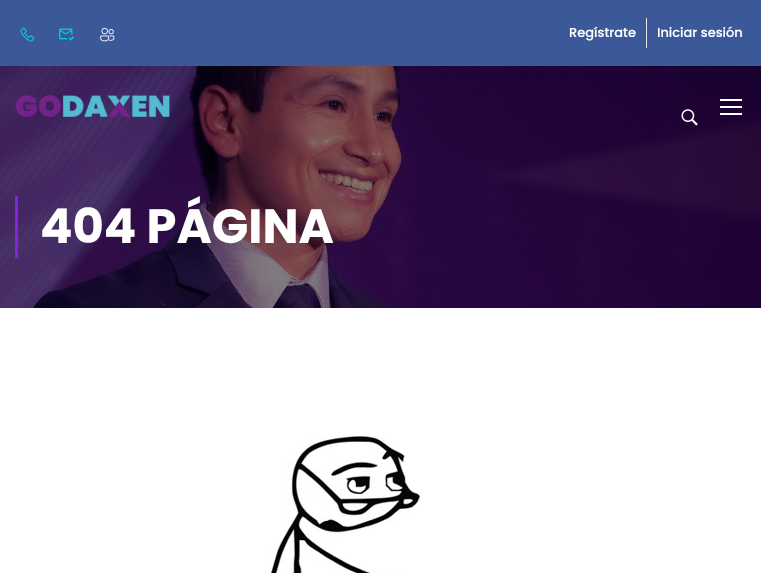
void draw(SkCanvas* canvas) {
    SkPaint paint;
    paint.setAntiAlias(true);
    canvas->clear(0xFFFFFFFF);
    paint.setColor(0xFF3B5998);
    canvas->drawRect(SkRect::MakeXYWH(0, 0, 761, 66), paint);
    canvas->drawImageRect(SkImages::DeferredFromEncodedData(SkData::MakeFromFileName("img1.png")), SkRect::MakeXYWH(20, 27, 15, 15), SkSamplingOptions());
    canvas->drawImageRect(SkImages::DeferredFromEncodedData(SkData::MakeFromFileName("img2.png")), SkRect::MakeXYWH(59, 28, 15, 13), SkSamplingOptions());
    canvas->drawImageRect(SkImages::DeferredFromEncodedData(SkData::MakeFromFileName("img3.png")), SkRect::MakeXYWH(100, 27, 15, 15), SkSamplingOptions());
    paint.setColor(0xFFE7E7E7);
    canvas->drawRect(SkRect::MakeXYWH(646, 18, 1, 30), paint);
    SkFont font1(fontMgr->matchFamilyStyle("Poppins", SkFontStyle(500, SkFontStyle::kNormal_Width, SkFontStyle::kUpright_Slant)), 13);
    font1.setSubpixel(true);
    paint.setColor(0xFFFFFFFF);
    canvas->drawString("Regístrate", 569, 37, font1, paint);
    canvas->drawString("Iniciar sesión", 657, 37, font1, paint);
    canvas->drawImageRect(SkImages::DeferredFromEncodedData(SkData::MakeFromFileName("img6.png")), SkRect::MakeXYWH(0, 66, 761, 242), SkSamplingOptions());
    canvas->drawImageRect(SkImages::DeferredFromEncodedData(SkData::MakeFromFileName("img4.png")), SkRect::MakeXYWH(15, 95, 155, 22), SkSamplingOptions());
    canvas->drawRect(SkRect::MakeXYWH(720, 99, 22, 2), paint);
    canvas->drawRect(SkRect::MakeXYWH(720, 106, 22, 2), paint);
    canvas->drawRect(SkRect::MakeXYWH(720, 113, 22, 2), paint);
    canvas->drawImageRect(SkImages::DeferredFromEncodedData(SkData::MakeFromFileName("img5.png")), SkRect::MakeXYWH(681, 109, 17, 17), SkSamplingOptions());
    paint.setColor(0xFF8224E3);
    canvas->drawRect(SkRect::MakeXYWH(15, 196, 3, 62), paint);
    SkFont font2(fontMgr->matchFamilyStyle("Poppins", SkFontStyle::Bold()), 48);
    font2.setSubpixel(true);
    paint.setColor(0xFFFFFFFF);
    canvas->drawString("404 PÁGINA", 40, 243, font2, paint);
    canvas->drawImageRect(SkImages::DeferredFromEncodedData(SkData::MakeFromFileName("img7.png")), SkRect::MakeXYWH(271, 435, 152, 138), SkSamplingOptions());
}
